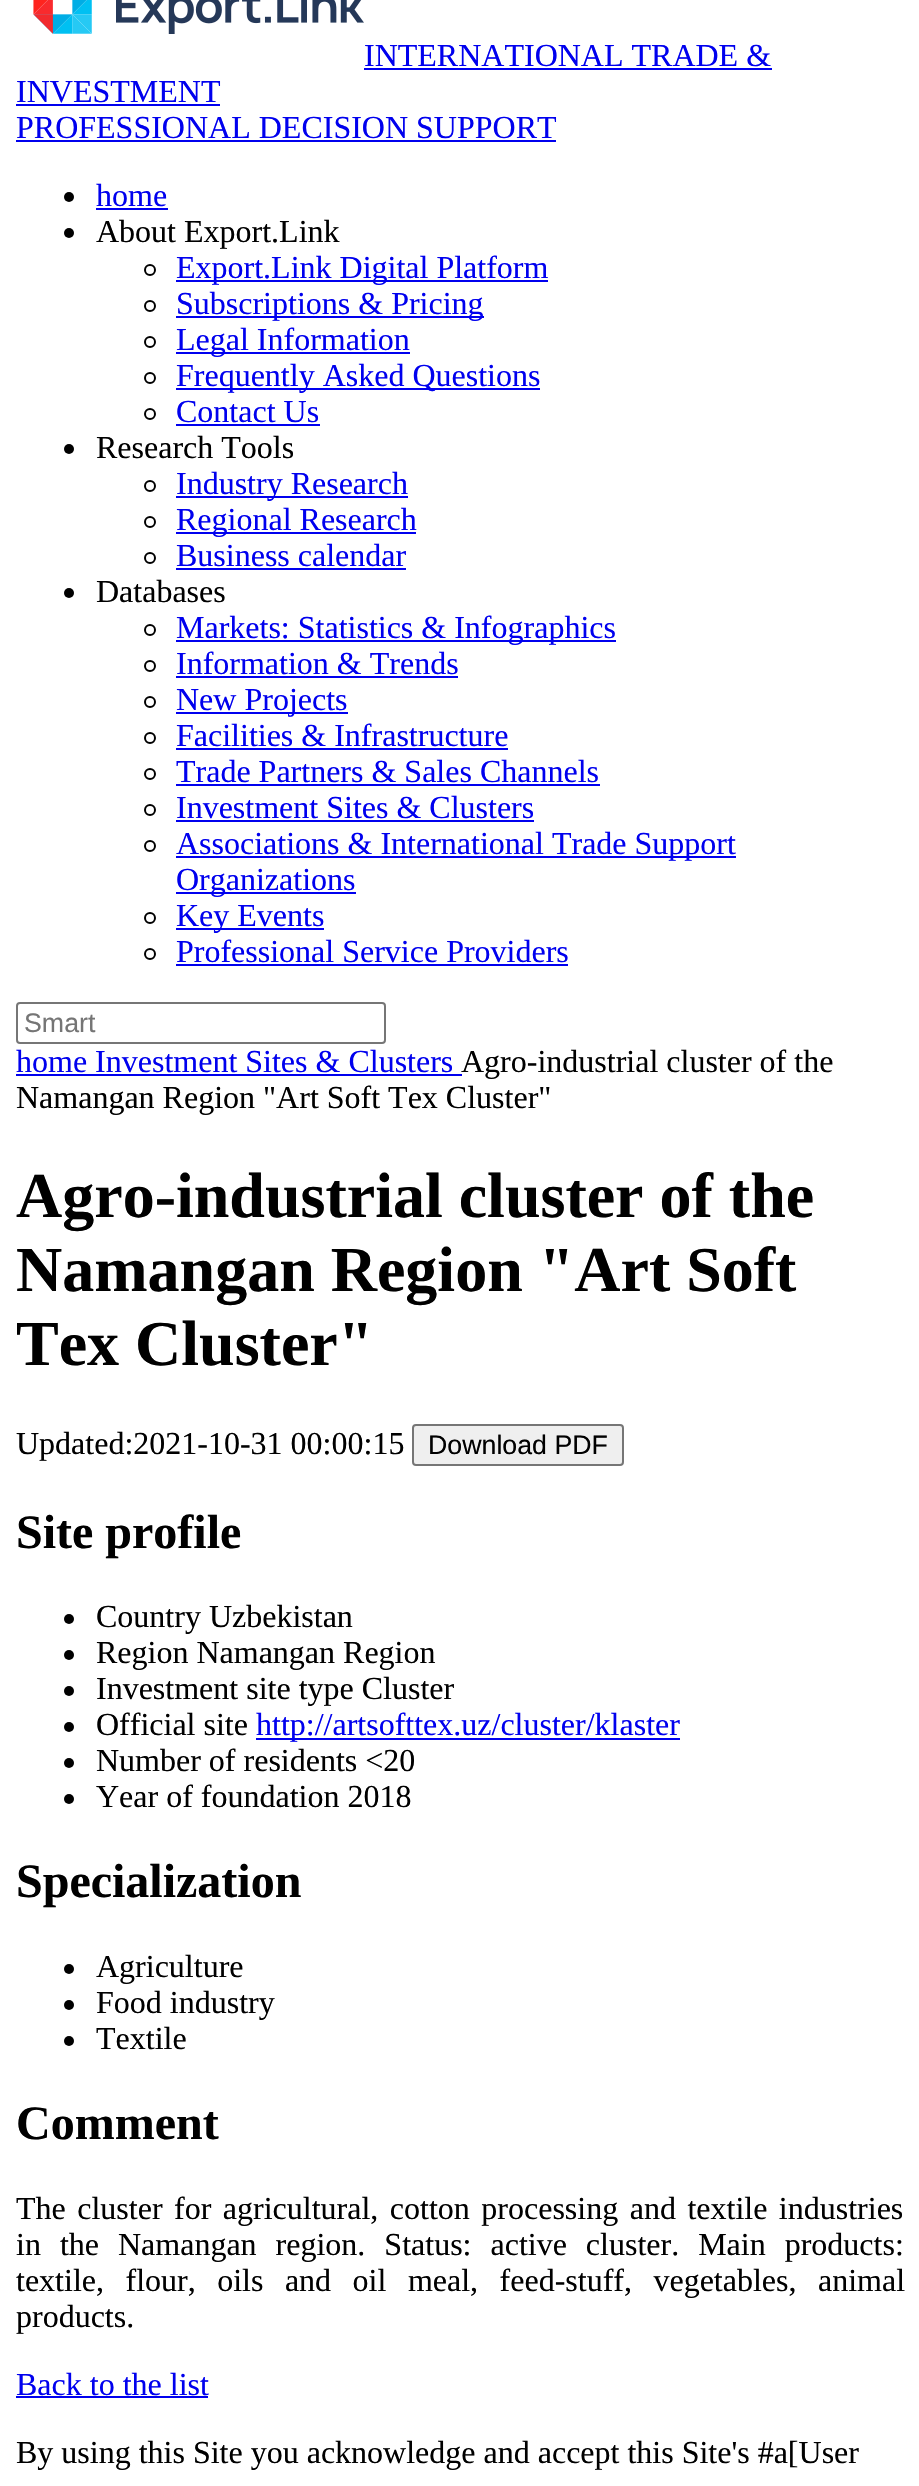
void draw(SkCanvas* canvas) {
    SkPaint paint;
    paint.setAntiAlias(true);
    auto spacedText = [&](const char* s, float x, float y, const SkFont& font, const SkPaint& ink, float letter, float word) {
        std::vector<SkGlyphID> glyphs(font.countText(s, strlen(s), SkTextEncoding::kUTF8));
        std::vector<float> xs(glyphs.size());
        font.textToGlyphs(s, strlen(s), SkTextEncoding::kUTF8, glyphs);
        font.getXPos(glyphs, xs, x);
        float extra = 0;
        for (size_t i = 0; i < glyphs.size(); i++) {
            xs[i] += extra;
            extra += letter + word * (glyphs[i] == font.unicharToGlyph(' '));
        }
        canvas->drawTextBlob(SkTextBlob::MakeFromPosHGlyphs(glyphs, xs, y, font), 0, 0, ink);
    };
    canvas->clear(0xFFFFFFFF);
    canvas->drawImageRect(SkImages::DeferredFromEncodedData(SkData::MakeFromFileName("img1.png")), SkRect::MakeXYWH(33, 0, 331, 34), SkSamplingOptions());
    SkFont font1(fontMgr->matchFamilyStyle("Liberation Serif", SkFontStyle::Normal()), 32);
    font1.setSubpixel(true);
    paint.setColor(0xFF0000EE);
    canvas->drawString("INTERNATIONAL TRADE &", 364, 66, font1, paint);
    canvas->drawRect(SkRect::MakeXYWH(364, 68, 408, 2), paint);
    canvas->drawString("INVESTMENT", 16, 102, font1, paint);
    canvas->drawRect(SkRect::MakeXYWH(16, 104, 204, 2), paint);
    canvas->drawString("PROFESSIONAL DECISION SUPPORТ", 16, 138, font1, paint);
    canvas->drawRect(SkRect::MakeXYWH(16, 140, 540, 2), paint);
    paint.setColor(0xFF000000);
    canvas->drawCircle(69, 197, 5, paint);
    paint.setColor(0xFF0000EE);
    canvas->drawString("home", 96, 206, font1, paint);
    canvas->drawRect(SkRect::MakeXYWH(96, 208, 72, 2), paint);
    paint.setColor(0xFF000000);
    canvas->drawCircle(69, 233, 5, paint);
    canvas->drawString("About Export.Link", 96, 242, font1, paint);
    paint.setStyle(SkPaint::kStroke_Style);
    paint.setStrokeWidth(2);
    canvas->drawCircle(150, 270, 5, paint);
    paint.setStyle(SkPaint::kFill_Style);
    paint.setColor(0xFF0000EE);
    canvas->drawRect(SkRect::MakeXYWH(176, 280, 372, 2), paint);
    canvas->drawString("Export.Link Digital Platform", 176, 278, font1, paint);
    paint.setStyle(SkPaint::kStroke_Style);
    paint.setColor(0xFF000000);
    canvas->drawCircle(150, 306, 5, paint);
    paint.setStyle(SkPaint::kFill_Style);
    paint.setColor(0xFF0000EE);
    canvas->drawRect(SkRect::MakeXYWH(176, 316, 308, 2), paint);
    canvas->drawString("Subscriptions & Pricing", 176, 314, font1, paint);
    paint.setStyle(SkPaint::kStroke_Style);
    paint.setColor(0xFF000000);
    canvas->drawCircle(150, 342, 5, paint);
    paint.setStyle(SkPaint::kFill_Style);
    paint.setColor(0xFF0000EE);
    canvas->drawRect(SkRect::MakeXYWH(176, 352, 234, 2), paint);
    canvas->drawString("Legal Information", 176, 350, font1, paint);
    paint.setStyle(SkPaint::kStroke_Style);
    paint.setColor(0xFF000000);
    canvas->drawCircle(150, 378, 5, paint);
    paint.setStyle(SkPaint::kFill_Style);
    paint.setColor(0xFF0000EE);
    canvas->drawRect(SkRect::MakeXYWH(176, 388, 364, 2), paint);
    canvas->drawString("Frequently Asked Questions", 176, 386, font1, paint);
    paint.setStyle(SkPaint::kStroke_Style);
    paint.setColor(0xFF000000);
    canvas->drawCircle(150, 414, 5, paint);
    paint.setStyle(SkPaint::kFill_Style);
    paint.setColor(0xFF0000EE);
    canvas->drawString("Contact Us", 176, 422, font1, paint);
    canvas->drawRect(SkRect::MakeXYWH(176, 424, 144, 2), paint);
    paint.setColor(0xFF000000);
    canvas->drawCircle(69, 449, 5, paint);
    canvas->drawString("Research Tools", 96, 458, font1, paint);
    paint.setStyle(SkPaint::kStroke_Style);
    canvas->drawCircle(150, 486, 5, paint);
    paint.setStyle(SkPaint::kFill_Style);
    paint.setColor(0xFF0000EE);
    canvas->drawRect(SkRect::MakeXYWH(176, 496, 232, 2), paint);
    canvas->drawString("Industry Research", 176, 494, font1, paint);
    paint.setStyle(SkPaint::kStroke_Style);
    paint.setColor(0xFF000000);
    canvas->drawCircle(150, 522, 5, paint);
    paint.setStyle(SkPaint::kFill_Style);
    paint.setColor(0xFF0000EE);
    canvas->drawRect(SkRect::MakeXYWH(176, 532, 240, 2), paint);
    canvas->drawString("Regional Research", 176, 530, font1, paint);
    paint.setStyle(SkPaint::kStroke_Style);
    paint.setColor(0xFF000000);
    canvas->drawCircle(150, 558, 5, paint);
    paint.setStyle(SkPaint::kFill_Style);
    paint.setColor(0xFF0000EE);
    canvas->drawString("Business calendar", 176, 566, font1, paint);
    canvas->drawRect(SkRect::MakeXYWH(176, 568, 230, 2), paint);
    paint.setColor(0xFF000000);
    canvas->drawCircle(69, 593, 5, paint);
    canvas->drawString("Databases", 96, 602, font1, paint);
    paint.setStyle(SkPaint::kStroke_Style);
    canvas->drawCircle(150, 630, 5, paint);
    paint.setStyle(SkPaint::kFill_Style);
    paint.setColor(0xFF0000EE);
    canvas->drawRect(SkRect::MakeXYWH(176, 640, 440, 2), paint);
    canvas->drawString("Markets: Statistics & Infographics", 176, 638, font1, paint);
    paint.setStyle(SkPaint::kStroke_Style);
    paint.setColor(0xFF000000);
    canvas->drawCircle(150, 666, 5, paint);
    paint.setStyle(SkPaint::kFill_Style);
    paint.setColor(0xFF0000EE);
    canvas->drawString("Information & Trends", 176, 674, font1, paint);
    canvas->drawRect(SkRect::MakeXYWH(176, 676, 282, 2), paint);
    paint.setStyle(SkPaint::kStroke_Style);
    paint.setColor(0xFF000000);
    canvas->drawCircle(150, 702, 5, paint);
    paint.setStyle(SkPaint::kFill_Style);
    paint.setColor(0xFF0000EE);
    canvas->drawRect(SkRect::MakeXYWH(176, 712, 172, 2), paint);
    canvas->drawString("New Projects", 176, 710, font1, paint);
    paint.setStyle(SkPaint::kStroke_Style);
    paint.setColor(0xFF000000);
    canvas->drawCircle(150, 738, 5, paint);
    paint.setStyle(SkPaint::kFill_Style);
    paint.setColor(0xFF0000EE);
    canvas->drawString("Facilities & Infrastructure", 176, 746, font1, paint);
    canvas->drawRect(SkRect::MakeXYWH(176, 748, 332, 2), paint);
    paint.setStyle(SkPaint::kStroke_Style);
    paint.setColor(0xFF000000);
    canvas->drawCircle(150, 774, 5, paint);
    paint.setStyle(SkPaint::kFill_Style);
    paint.setColor(0xFF0000EE);
    canvas->drawString("Trade Partners & Sales Channels", 176, 782, font1, paint);
    canvas->drawRect(SkRect::MakeXYWH(176, 784, 424, 2), paint);
    paint.setStyle(SkPaint::kStroke_Style);
    paint.setColor(0xFF000000);
    canvas->drawCircle(150, 810, 5, paint);
    paint.setStyle(SkPaint::kFill_Style);
    paint.setColor(0xFF0000EE);
    canvas->drawString("Investment Sites & Clusters", 176, 818, font1, paint);
    canvas->drawRect(SkRect::MakeXYWH(176, 820, 358, 2), paint);
    paint.setStyle(SkPaint::kStroke_Style);
    paint.setColor(0xFF000000);
    canvas->drawCircle(150, 846, 5, paint);
    paint.setStyle(SkPaint::kFill_Style);
    paint.setColor(0xFF0000EE);
    canvas->drawRect(SkRect::MakeXYWH(176, 856, 560, 2), paint);
    canvas->drawString("Associations & International Trade Support", 176, 854, font1, paint);
    canvas->drawRect(SkRect::MakeXYWH(176, 892, 180, 2), paint);
    canvas->drawString("Organizations", 176, 890, font1, paint);
    paint.setStyle(SkPaint::kStroke_Style);
    paint.setColor(0xFF000000);
    canvas->drawCircle(150, 918, 5, paint);
    paint.setStyle(SkPaint::kFill_Style);
    paint.setColor(0xFF0000EE);
    canvas->drawRect(SkRect::MakeXYWH(176, 928, 148, 2), paint);
    canvas->drawString("Key Events", 176, 926, font1, paint);
    paint.setStyle(SkPaint::kStroke_Style);
    paint.setColor(0xFF000000);
    canvas->drawCircle(150, 954, 5, paint);
    paint.setStyle(SkPaint::kFill_Style);
    paint.setColor(0xFF0000EE);
    canvas->drawString("Professional Service Providers", 176, 962, font1, paint);
    canvas->drawRect(SkRect::MakeXYWH(176, 964, 392, 2), paint);
    paint.setStyle(SkPaint::kStroke_Style);
    paint.setColor(0xFF767676);
    canvas->drawRoundRect(SkRect::MakeXYWH(17, 1003, 368, 40), 3, 3, paint);
    SkFont font2(fontMgr->matchFamilyStyle("Liberation Sans", SkFontStyle::Normal()), 26.75f);
    font2.setSubpixel(true);
    paint.setStyle(SkPaint::kFill_Style);
    paint.setColor(0xFF757575);
    canvas->drawString("Smart", 24, 1032, font2, paint);
    paint.setColor(0xFF0000EE);
    canvas->drawString("home Investment Sites & Clusters", 16, 1072, font1, paint);
    canvas->drawRect(SkRect::MakeXYWH(16, 1074, 446, 2), paint);
    paint.setColor(0xFF000000);
    canvas->drawString("Agro-industrial cluster of the", 461, 1072, font1, paint);
    canvas->drawString("Namangan Region \"Art Soft Tex Cluster\"", 16, 1108, font1, paint);
    SkFont font3(fontMgr->matchFamilyStyle("Liberation Serif", SkFontStyle::Bold()), 64);
    font3.setSubpixel(true);
    canvas->drawString("Agro-industrial cluster of the", 16, 1217, font3, paint);
    canvas->drawString("Namangan Region \"Art Soft", 16, 1291, font3, paint);
    canvas->drawString("Tex Cluster\"", 16, 1365, font3, paint);
    canvas->drawString("Updated:2021-10-31 00:00:15", 16, 1454, font1, paint);
    paint.setColor(0xFFEFEFEF);
    canvas->drawRoundRect(SkRect::MakeXYWH(413, 1425, 210, 40), 3, 3, paint);
    paint.setStyle(SkPaint::kStroke_Style);
    paint.setColor(0xFF767676);
    canvas->drawRoundRect(SkRect::MakeXYWH(413, 1425, 210, 40), 3, 3, paint);
    paint.setStyle(SkPaint::kFill_Style);
    paint.setColor(0xFF000000);
    canvas->drawString("Download PDF", 428, 1454, font2, paint);
    SkFont font4(fontMgr->matchFamilyStyle("Liberation Serif", SkFontStyle::Bold()), 48);
    font4.setSubpixel(true);
    canvas->drawString("Site profile", 16, 1548, font4, paint);
    canvas->drawCircle(69, 1619, 5, paint);
    canvas->drawString("Country Uzbekistan", 96, 1627, font1, paint);
    canvas->drawCircle(69, 1655, 5, paint);
    canvas->drawString("Region Namangan Region", 96, 1663, font1, paint);
    canvas->drawCircle(69, 1691, 5, paint);
    canvas->drawString("Investment site type Cluster", 96, 1699, font1, paint);
    canvas->drawCircle(69, 1727, 5, paint);
    canvas->drawString("Official site", 96, 1735, font1, paint);
    paint.setColor(0xFF0000EE);
    canvas->drawRect(SkRect::MakeXYWH(256, 1738, 424, 2), paint);
    canvas->drawString("http://artsofttex.uz/cluster/klaster", 256, 1735, font1, paint);
    paint.setColor(0xFF000000);
    canvas->drawCircle(69, 1763, 5, paint);
    canvas->drawString("Number of residents <20", 96, 1771, font1, paint);
    canvas->drawCircle(69, 1799, 5, paint);
    canvas->drawString("Year of foundation 2018", 96, 1807, font1, paint);
    canvas->drawString("Specialization", 16, 1897, font4, paint);
    canvas->drawCircle(69, 1969, 5, paint);
    canvas->drawString("Agriculture", 96, 1977, font1, paint);
    canvas->drawCircle(69, 2005, 5, paint);
    canvas->drawString("Food industry", 96, 2013, font1, paint);
    canvas->drawCircle(69, 2041, 5, paint);
    canvas->drawString("Textile", 96, 2049, font1, paint);
    canvas->drawString("Comment", 16, 2139, font4, paint);
    spacedText("The cluster for agricultural, cotton processing and textile industries", 16, 2219, font1, paint, 0, 3.5f);
    spacedText("in the Namangan region. Status: active cluster. Main products:", 16, 2255, font1, paint, 0, 11);
    spacedText("textile, flour, oils and oil meal, feed-stuff, vegetables, animal", 16, 2291, font1, paint, 0, 13.5f);
    canvas->drawString("products.", 16, 2327, font1, paint);
    paint.setColor(0xFF0000EE);
    canvas->drawString("Back to the list", 16, 2395, font1, paint);
    canvas->drawRect(SkRect::MakeXYWH(16, 2396, 192, 2), paint);
    paint.setColor(0xFF000000);
    canvas->drawString("By using this Site you acknowledge and accept this Site's #a[User", 16, 2463, font1, paint);
}
